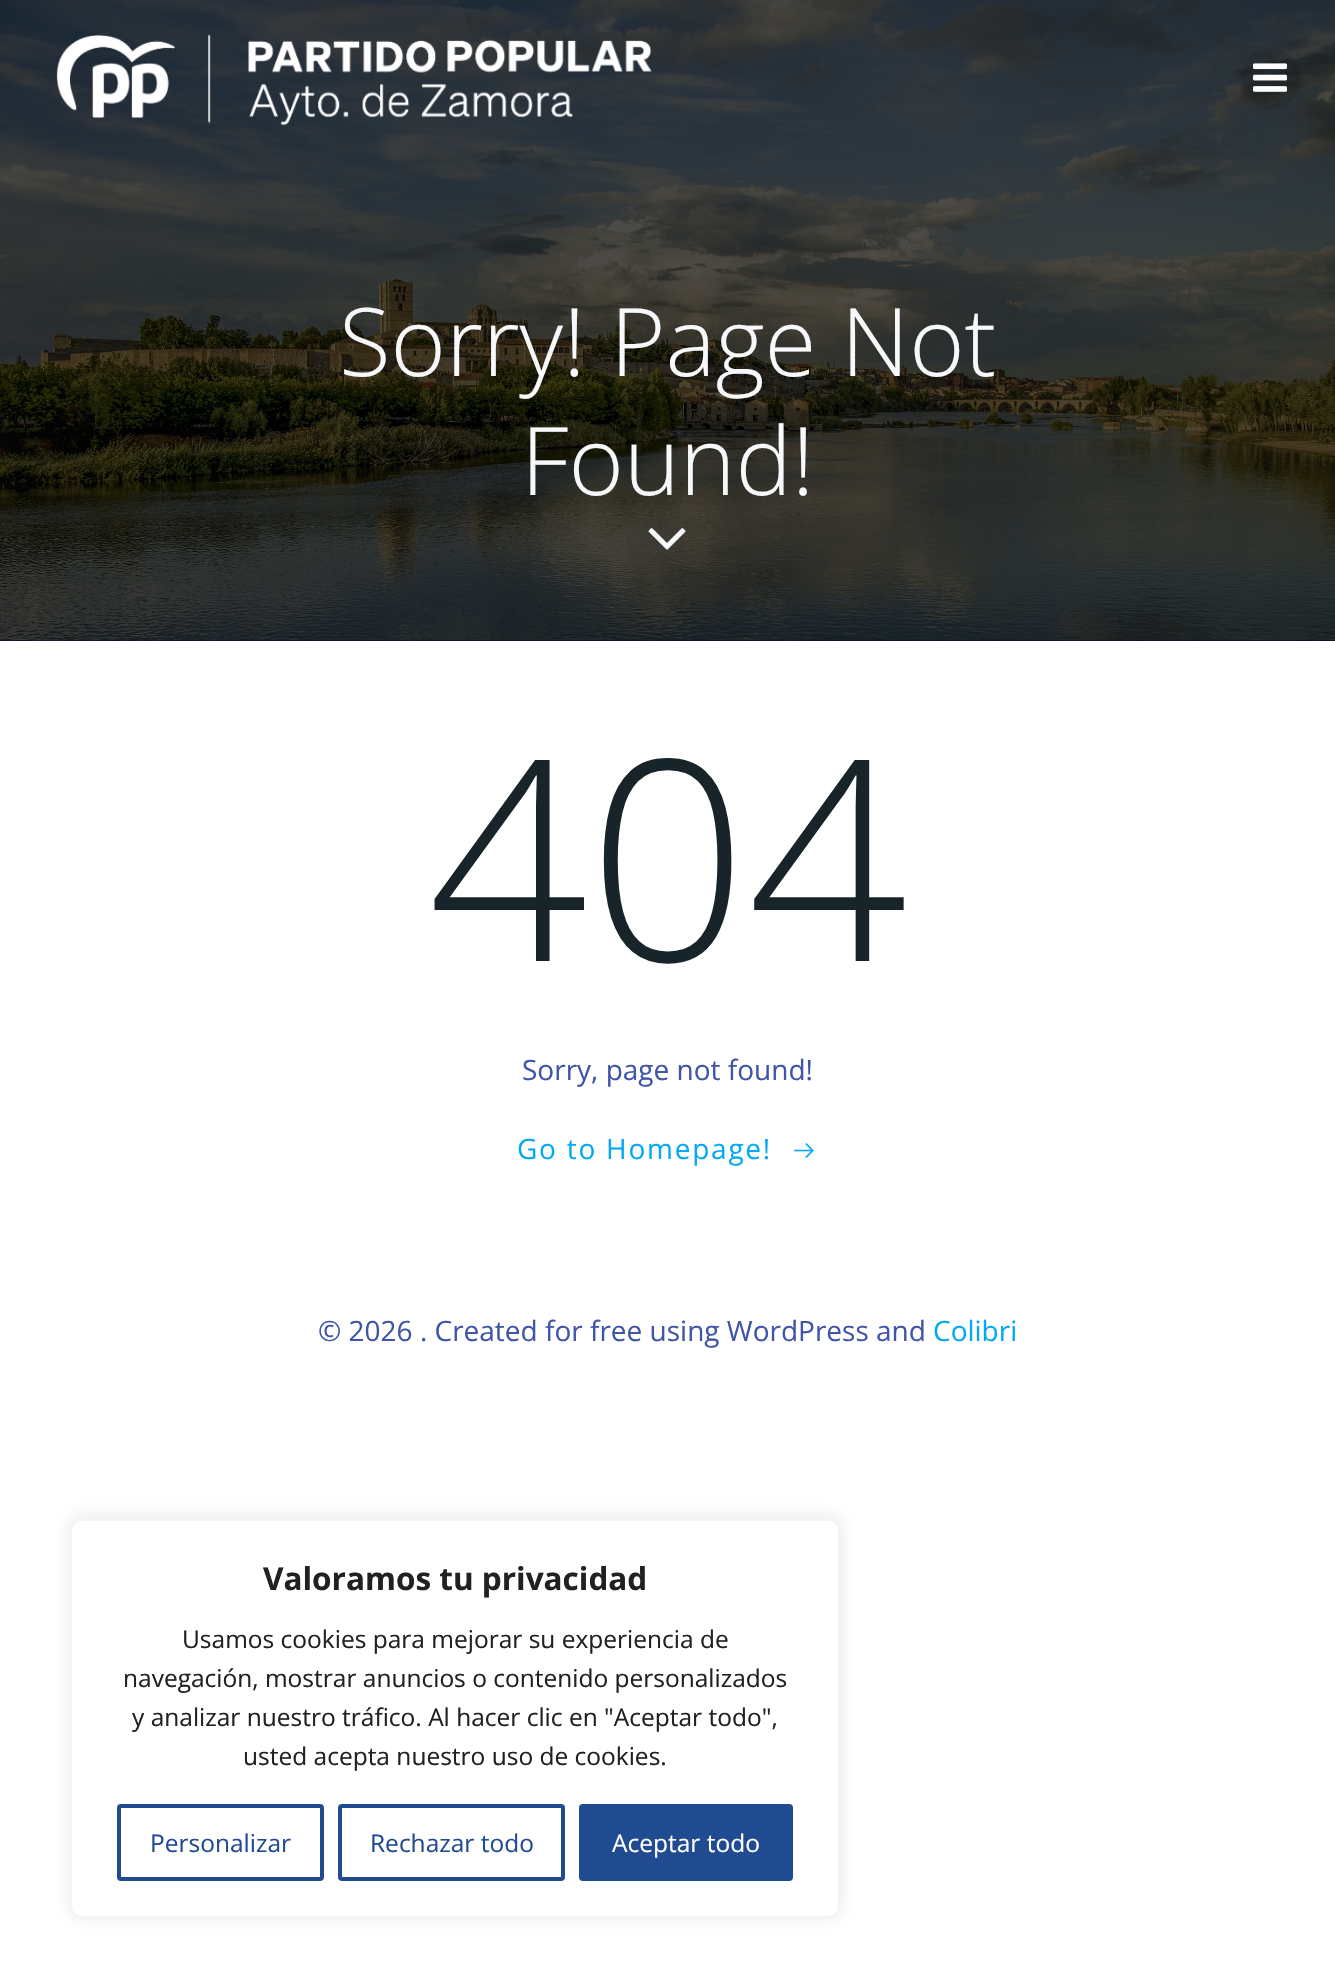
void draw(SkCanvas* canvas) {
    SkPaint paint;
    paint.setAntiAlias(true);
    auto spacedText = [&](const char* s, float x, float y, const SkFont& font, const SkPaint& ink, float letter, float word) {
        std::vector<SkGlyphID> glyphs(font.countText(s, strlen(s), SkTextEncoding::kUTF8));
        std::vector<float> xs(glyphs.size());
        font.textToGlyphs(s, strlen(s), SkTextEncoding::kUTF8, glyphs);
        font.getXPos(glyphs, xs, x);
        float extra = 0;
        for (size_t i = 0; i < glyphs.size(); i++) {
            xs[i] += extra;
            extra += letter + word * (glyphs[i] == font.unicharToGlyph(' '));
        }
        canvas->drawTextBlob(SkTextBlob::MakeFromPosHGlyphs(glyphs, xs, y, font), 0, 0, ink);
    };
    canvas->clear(0xFFFFFFFF);
    paint.setColor(0xFF020925);
    canvas->drawRect(SkRect::MakeXYWH(0, 640, 1335, 1), paint);
    canvas->drawImageRect(SkImages::DeferredFromEncodedData(SkData::MakeFromFileName("img3.png")), SkRect::MakeXYWH(0, 0, 1335, 641), SkSamplingOptions());
    canvas->drawImageRect(SkImages::DeferredFromEncodedData(SkData::MakeFromFileName("img1.png")), SkRect::MakeXYWH(56, 34, 596, 92), SkSamplingOptions());
    paint.setColor(0x1A000000);
    canvas->drawRoundRect(SkRect::MakeXYWH(1241, 49, 59, 60), 29.5f, 29.5f, paint);
    canvas->drawImageRect(SkImages::DeferredFromEncodedData(SkData::MakeFromFileName("img2.png")), SkRect::MakeXYWH(1253, 63, 34, 29), SkSamplingOptions());
    SkFont font1(fontMgr->matchFamilyStyle("Open Sans", SkFontStyle(300, SkFontStyle::kNormal_Width, SkFontStyle::kUpright_Slant)), 94.5f);
    font1.setSubpixel(true);
    paint.setColor(0xFFF6F8FA);
    canvas->drawString("Sorry! Page Not", 339, 376, font1, paint);
    canvas->drawString("Found!", 521, 495, font1, paint);
    canvas->drawImageRect(SkImages::DeferredFromEncodedData(SkData::MakeFromFileName("img4.png")), SkRect::MakeXYWH(648, 528, 38, 22), SkSamplingOptions());
    SkFont font2(fontMgr->matchFamilyStyle("Open Sans", SkFontStyle(300, SkFontStyle::kNormal_Width, SkFontStyle::kUpright_Slant)), 280);
    font2.setSubpixel(true);
    paint.setColor(0xFF17252A);
    canvas->drawString("404", 428, 961, font2, paint);
    SkFont font3(fontMgr->matchFamilyStyle("Open Sans", SkFontStyle::Normal()), 28);
    font3.setSubpixel(true);
    paint.setColor(0xFF4055A9);
    canvas->drawString("Sorry, page not found!", 522, 1080, font3, paint);
    paint.setColor(0xFF03A9F4);
    spacedText("Go to Homepage!", 517, 1159, font3, paint, 1.75f, 0);
    canvas->drawImageRect(SkImages::DeferredFromEncodedData(SkData::MakeFromFileName("img5.png")), SkRect::MakeXYWH(794, 1143, 20, 15), SkSamplingOptions());
    paint.setColor(0xFF4055A9);
    canvas->drawString("© 2026 . Created for free using WordPress and", 318, 1341, font3, paint);
    paint.setColor(0xFF03A9F4);
    canvas->drawString("Colibri", 933, 1341, font3, paint);
    paint.setColor(0x4DACABAB);
    paint.setMaskFilter(SkMaskFilter::MakeBlur(kNormal_SkBlurStyle, 9));
    canvas->drawRoundRect(SkRect::MakeXYWH(70, 1517, 770, 399), 11, 11, paint);
    paint.setMaskFilter(nullptr);
    paint.setColor(0xFFFFFFFF);
    canvas->drawRoundRect(SkRect::MakeXYWH(71, 1520, 768, 397), 10, 10, paint);
    paint.setStyle(SkPaint::kStroke_Style);
    paint.setStrokeWidth(2);
    paint.setColor(0xFFF4F4F4);
    canvas->drawRoundRect(SkRect::MakeXYWH(71, 1520, 768, 397), 10, 10, paint);
    SkFont font4(fontMgr->matchFamilyStyle("Open Sans", SkFontStyle::Bold()), 31.5f);
    font4.setSubpixel(true);
    paint.setStyle(SkPaint::kFill_Style);
    paint.setColor(0xFF212121);
    canvas->drawString("Valoramos tu privacidad", 263, 1590, font4, paint);
    SkFont font5(fontMgr->matchFamilyStyle("Open Sans", SkFontStyle::Normal()), 24.5f);
    font5.setSubpixel(true);
    canvas->drawString("Usamos cookies para mejorar su experiencia de", 182, 1648, font5, paint);
    canvas->drawString("navegación, mostrar anuncios o contenido personalizados", 123, 1687, font5, paint);
    canvas->drawString("y analizar nuestro tráfico. Al hacer clic en \"Aceptar todo\",", 132, 1726, font5, paint);
    canvas->drawString("usted acepta nuestro uso de cookies.", 243, 1765, font5, paint);
    paint.setStyle(SkPaint::kStroke_Style);
    paint.setStrokeWidth(4);
    paint.setColor(0xFF204B90);
    canvas->drawRoundRect(SkRect::MakeXYWH(119, 1806, 203, 73), 2, 2, paint);
    paint.setStyle(SkPaint::kFill_Style);
    canvas->drawString("Personalizar", 150, 1852, font5, paint);
    paint.setStyle(SkPaint::kStroke_Style);
    canvas->drawRoundRect(SkRect::MakeXYWH(340, 1806, 223, 73), 2, 2, paint);
    paint.setStyle(SkPaint::kFill_Style);
    canvas->drawString("Rechazar todo", 370, 1852, font5, paint);
    canvas->drawRoundRect(SkRect::MakeXYWH(581, 1806, 210, 73), 2, 2, paint);
    paint.setStyle(SkPaint::kStroke_Style);
    canvas->drawRoundRect(SkRect::MakeXYWH(581, 1806, 210, 73), 2, 2, paint);
    paint.setStyle(SkPaint::kFill_Style);
    paint.setColor(0xFFFFFFFF);
    canvas->drawString("Aceptar todo", 612, 1852, font5, paint);
}
